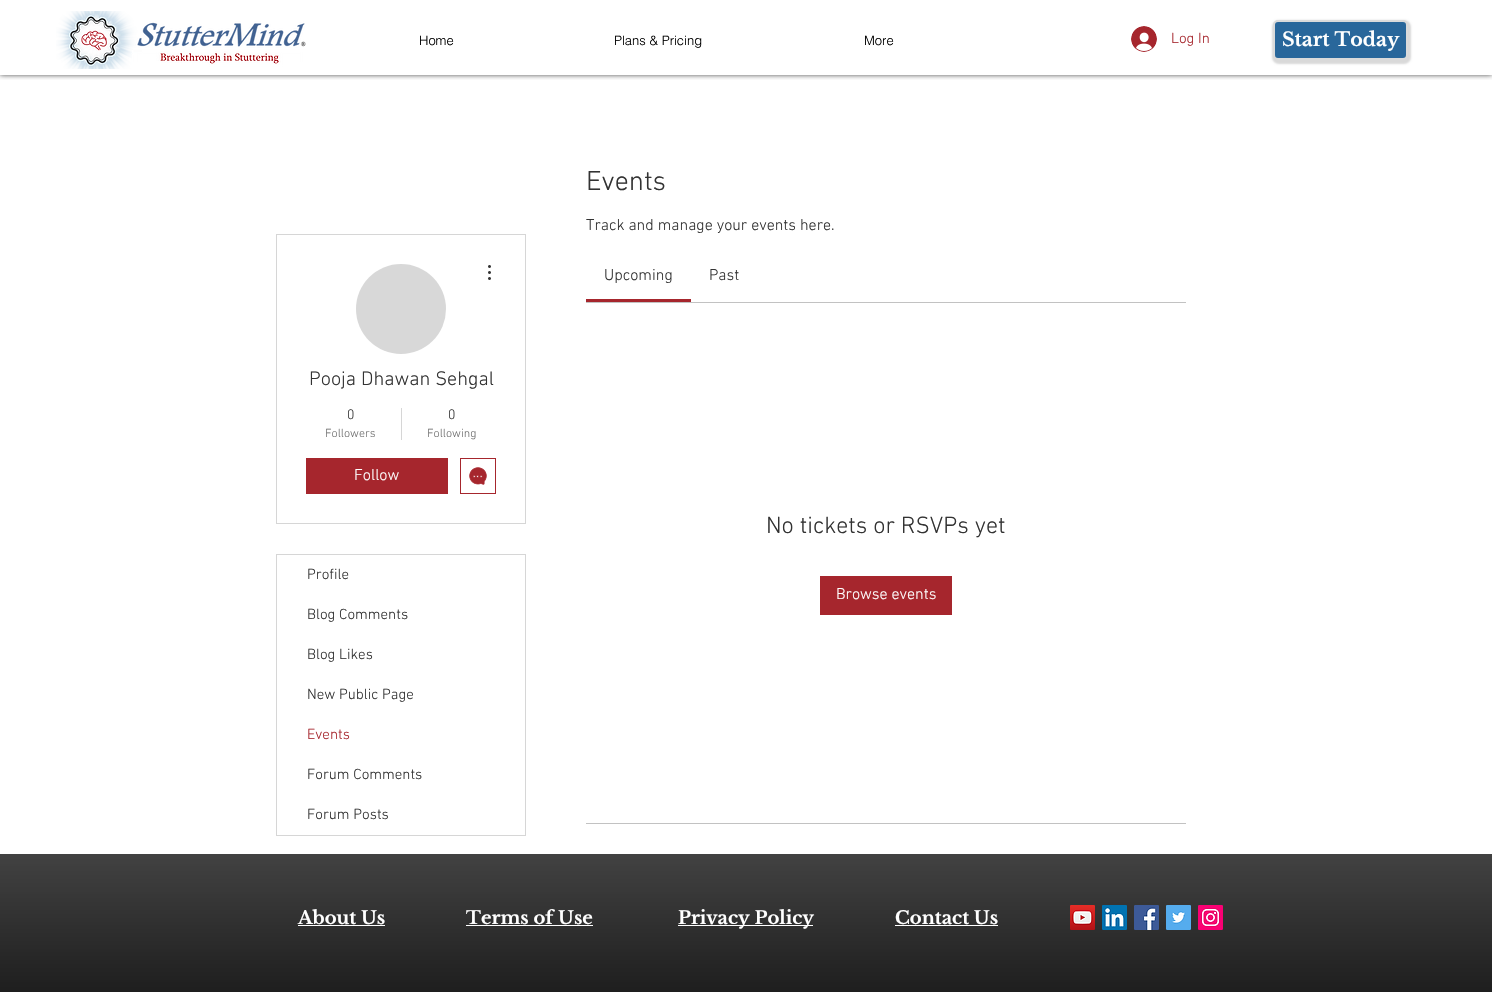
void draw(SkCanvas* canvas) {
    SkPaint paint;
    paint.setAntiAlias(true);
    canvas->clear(0xFFFFFFFF);
    canvas->save();
    canvas->clipRect(SkRect::MakeXYWH(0, 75, 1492, 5));
    paint.setColor(0xB3000000);
    paint.setMaskFilter(SkMaskFilter::MakeBlur(kNormal_SkBlurStyle, 2.5f));
    canvas->drawRect(SkRect::MakeXYWH(0, 0, 1492, 75), paint);
    paint.setMaskFilter(nullptr);
    canvas->restore();
    canvas->drawImageRect(SkImages::DeferredFromEncodedData(SkData::MakeFromFileName("img1.png")), SkRect::MakeXYWH(56, 11, 250, 58), SkSamplingOptions());
    SkFont font1(fontMgr->matchFamilyStyle("helvetica", SkFontStyle(300, SkFontStyle::kNormal_Width, SkFontStyle::kUpright_Slant)), 13);
    font1.setSubpixel(true);
    paint.setColor(0xFF000000);
    canvas->drawString("Home", 419, 45, font1, paint);
    canvas->drawString("Plans & Pricing", 614, 45, font1, paint);
    canvas->drawString("More", 864, 45, font1, paint);
    canvas->drawImageRect(SkImages::DeferredFromEncodedData(SkData::MakeFromFileName("img2.png")), SkRect::MakeXYWH(1131, 26, 26, 26), SkSamplingOptions());
    SkFont font2(fontMgr->matchFamilyStyle("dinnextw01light", SkFontStyle(300, SkFontStyle::kNormal_Width, SkFontStyle::kUpright_Slant)), 15);
    font2.setSubpixel(true);
    paint.setColor(0xFFA6262D);
    canvas->drawString("Log In", 1171, 43, font2, paint);
    paint.setColor(0x26000000);
    paint.setMaskFilter(SkMaskFilter::MakeBlur(kNormal_SkBlurStyle, 1));
    canvas->drawRoundRect(SkRect::MakeXYWH(1272, 20, 139, 44), 7, 7, paint);
    paint.setMaskFilter(nullptr);
    paint.setColor(0xFF29679B);
    canvas->drawRoundRect(SkRect::MakeXYWH(1274, 21, 133, 38), 4, 4, paint);
    paint.setStyle(SkPaint::kStroke_Style);
    paint.setStrokeWidth(2);
    paint.setColor(0xFFDBDBDB);
    canvas->drawRoundRect(SkRect::MakeXYWH(1274, 21, 133, 38), 4, 4, paint);
    SkFont font3(fontMgr->matchFamilyStyle("Libre Baskerville", SkFontStyle::Bold()), 19);
    font3.setSubpixel(true);
    paint.setStyle(SkPaint::kFill_Style);
    paint.setColor(0xFFFFFFFF);
    canvas->drawString("Start Today", 1282, 46, font3, paint);
    paint.setStyle(SkPaint::kStroke_Style);
    paint.setStrokeWidth(1);
    paint.setColor(0xFFD6D6D6);
    canvas->drawRect(SkRect::MakeXYWH(276.5f, 234.5f, 249, 289), paint);
    paint.setStyle(SkPaint::kFill_Style);
    paint.setColor(0xFFD8D8D8);
    canvas->drawCircle(401, 309, 45, paint);
    canvas->drawImageRect(SkImages::DeferredFromEncodedData(SkData::MakeFromFileName("img3.png")), SkRect::MakeXYWH(488, 265, 3, 15), SkSamplingOptions());
    SkFont font4(fontMgr->matchFamilyStyle("dinnextw01light", SkFontStyle(300, SkFontStyle::kNormal_Width, SkFontStyle::kUpright_Slant)), 20);
    font4.setSubpixel(true);
    paint.setColor(0xFF333333);
    canvas->drawString("Pooja Dhawan Sehgal", 309, 385, font4, paint);
    SkFont font5(fontMgr->matchFamilyStyle("dinnextw01light", SkFontStyle(300, SkFontStyle::kNormal_Width, SkFontStyle::kUpright_Slant)), 14);
    font5.setSubpixel(true);
    canvas->drawString("0", 347, 419, font5, paint);
    SkFont font6(fontMgr->matchFamilyStyle("dinnextw01light", SkFontStyle(300, SkFontStyle::kNormal_Width, SkFontStyle::kUpright_Slant)), 12);
    font6.setSubpixel(true);
    paint.setColor(0xFF707070);
    canvas->drawString("Followers", 325, 437, font6, paint);
    paint.setColor(0xFFD6D6D6);
    canvas->drawRect(SkRect::MakeXYWH(401, 408, 1, 32), paint);
    paint.setColor(0xFF333333);
    canvas->drawString("0", 448, 419, font5, paint);
    paint.setColor(0xFF707070);
    canvas->drawString("Following", 427, 437, font6, paint);
    paint.setColor(0xFFA6262D);
    canvas->drawRect(SkRect::MakeXYWH(306, 458, 142, 36), paint);
    SkFont font7(fontMgr->matchFamilyStyle("dinnextw01light", SkFontStyle(300, SkFontStyle::kNormal_Width, SkFontStyle::kUpright_Slant)), 16);
    font7.setSubpixel(true);
    paint.setColor(0xFFFFFFFF);
    canvas->drawString("Follow", 354, 480, font7, paint);
    paint.setStyle(SkPaint::kStroke_Style);
    paint.setColor(0xFFA6262D);
    canvas->drawRect(SkRect::MakeXYWH(460.5f, 458.5f, 35, 35), paint);
    canvas->drawImageRect(SkImages::DeferredFromEncodedData(SkData::MakeFromFileName("img4.png")), SkRect::MakeXYWH(469, 467, 18, 18), SkSamplingOptions());
    paint.setColor(0xFFD6D6D6);
    canvas->drawRect(SkRect::MakeXYWH(276.5f, 554.5f, 249, 281), paint);
    paint.setStyle(SkPaint::kFill_Style);
    paint.setColor(0xFF333333);
    canvas->drawString("Profile", 307, 579, font2, paint);
    canvas->drawString("Blog Comments", 307, 619, font2, paint);
    canvas->drawString("Blog Likes", 307, 659, font2, paint);
    canvas->drawString("New Public Page", 307, 699, font2, paint);
    paint.setColor(0xFFA6262D);
    canvas->drawString("Events", 307, 739, font2, paint);
    paint.setColor(0xFF333333);
    canvas->drawString("Forum Comments", 307, 779, font2, paint);
    canvas->drawString("Forum Posts", 307, 819, font2, paint);
    SkFont font8(fontMgr->matchFamilyStyle("dinnextw01light", SkFontStyle(300, SkFontStyle::kNormal_Width, SkFontStyle::kUpright_Slant)), 28);
    font8.setSubpixel(true);
    canvas->drawString("Events", 586, 190, font8, paint);
    canvas->drawString("Track and manage your events here.", 586, 230, font7, paint);
    paint.setColor(0xFFA6262D);
    canvas->drawRect(SkRect::MakeXYWH(586, 299, 105, 3), paint);
    paint.setColor(0xFF333333);
    canvas->drawString("Upcoming", 604, 280, font7, paint);
    canvas->drawString("Past", 709, 280, font7, paint);
    paint.setColor(0xFFC2C2C2);
    canvas->drawRect(SkRect::MakeXYWH(586, 302, 600, 1), paint);
    SkFont font9(fontMgr->matchFamilyStyle("dinnextw01light", SkFontStyle(300, SkFontStyle::kNormal_Width, SkFontStyle::kUpright_Slant)), 24);
    font9.setSubpixel(true);
    paint.setColor(0xFF333333);
    canvas->drawString("No tickets or RSVPs yet", 766, 533, font9, paint);
    paint.setColor(0xFFA6262D);
    canvas->drawRect(SkRect::MakeXYWH(820, 576, 132, 39), paint);
    paint.setColor(0xFFFFFFFF);
    canvas->drawString("Browse events", 836, 599, font7, paint);
    paint.setColor(0xFFC2C2C2);
    canvas->drawRect(SkRect::MakeXYWH(586, 823, 600, 1), paint);
    paint.setColor(0xFF000000);
    canvas->drawRect(SkRect::MakeXYWH(0, 854, 1492, 138), paint);
    canvas->drawImageRect(SkImages::DeferredFromEncodedData(SkData::MakeFromFileName("img5.png")), SkRect::MakeXYWH(0, 854, 1492, 138), SkSamplingOptions());
    SkFont font10(fontMgr->matchFamilyStyle("Libre Baskerville", SkFontStyle::Bold()), 18);
    font10.setSubpixel(true);
    paint.setColor(0xFFFFFFFF);
    canvas->drawString("About Us", 298, 924, font10, paint);
    canvas->drawRect(SkRect::MakeXYWH(298, 925, 87, 1), paint);
    canvas->drawString("Terms of Use", 466, 924, font10, paint);
    canvas->drawRect(SkRect::MakeXYWH(466, 925, 127, 1), paint);
    canvas->drawRect(SkRect::MakeXYWH(678, 925, 135, 1), paint);
    canvas->drawString("Privacy Policy", 678, 924, font10, paint);
    canvas->drawString("Contact Us", 895, 924, font10, paint);
    canvas->drawRect(SkRect::MakeXYWH(895, 925, 103, 1), paint);
    canvas->drawImageRect(SkImages::DeferredFromEncodedData(SkData::MakeFromFileName("img6.png")), SkRect::MakeXYWH(1070, 905, 25, 25), SkSamplingOptions());
    canvas->drawImageRect(SkImages::DeferredFromEncodedData(SkData::MakeFromFileName("img7.png")), SkRect::MakeXYWH(1102, 905, 25, 25), SkSamplingOptions());
    canvas->drawImageRect(SkImages::DeferredFromEncodedData(SkData::MakeFromFileName("img8.png")), SkRect::MakeXYWH(1134, 905, 25, 25), SkSamplingOptions());
    canvas->drawImageRect(SkImages::DeferredFromEncodedData(SkData::MakeFromFileName("img9.png")), SkRect::MakeXYWH(1166, 905, 25, 25), SkSamplingOptions());
    canvas->drawImageRect(SkImages::DeferredFromEncodedData(SkData::MakeFromFileName("img10.png")), SkRect::MakeXYWH(1198, 905, 25, 25), SkSamplingOptions());
}
